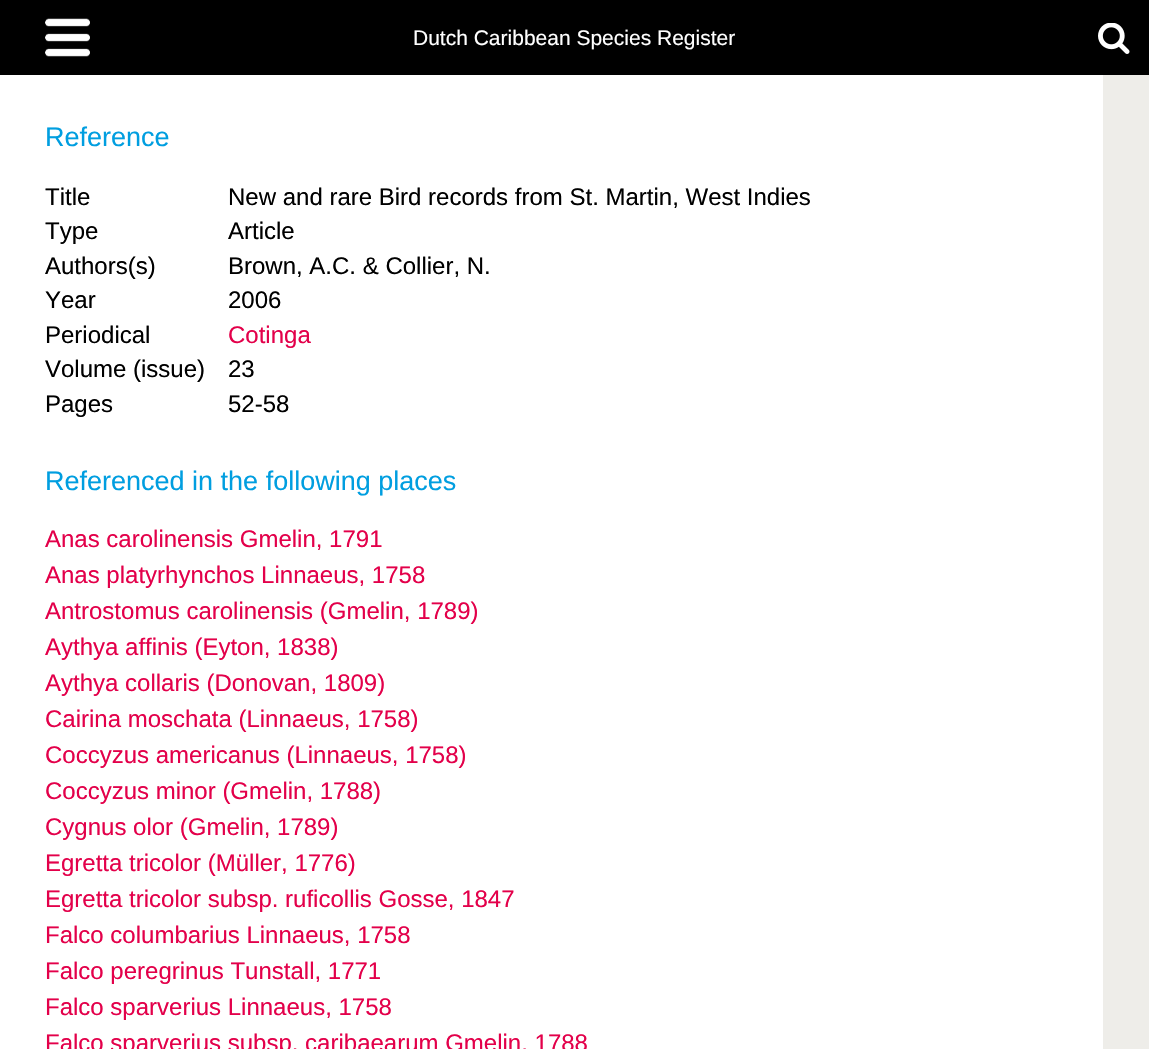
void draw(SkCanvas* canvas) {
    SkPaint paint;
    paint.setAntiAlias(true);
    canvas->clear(0xFFEEEDE9);
    paint.setColor(0xFF000000);
    canvas->drawRect(SkRect::MakeXYWH(0, 0, 1149, 75), paint);
    canvas->drawImageRect(SkImages::DeferredFromEncodedData(SkData::MakeFromFileName("img1.png")), SkRect::MakeXYWH(45, 18, 45, 39), SkSamplingOptions());
    SkFont font1(fontMgr->matchFamilyStyle("Liberation Sans", SkFontStyle::Normal()), 21);
    font1.setSubpixel(true);
    paint.setColor(0xFFFFFFFF);
    canvas->drawString("Dutch Caribbean Species Register", 413, 45, font1, paint);
    canvas->drawImageRect(SkImages::DeferredFromEncodedData(SkData::MakeFromFileName("img2.png")), SkRect::MakeXYWH(1098, 23, 32, 31), SkSamplingOptions());
    canvas->drawRect(SkRect::MakeXYWH(0, 75, 1103, 974), paint);
    SkFont font2(fontMgr->matchFamilyStyle("Liberation Sans", SkFontStyle::Normal()), 27);
    font2.setSubpixel(true);
    paint.setColor(0xFF009EE0);
    canvas->drawString("Reference", 45, 146, font2, paint);
    SkFont font3(fontMgr->matchFamilyStyle("Liberation Sans", SkFontStyle::Normal()), 24);
    font3.setSubpixel(true);
    paint.setColor(0xFF000000);
    canvas->drawString("Title", 45, 205, font3, paint);
    canvas->drawString("New and rare Bird records from St. Martin, West Indies", 228, 205, font3, paint);
    canvas->drawString("Type", 45, 239, font3, paint);
    canvas->drawString("Article", 228, 239, font3, paint);
    canvas->drawString("Authors(s)", 45, 274, font3, paint);
    canvas->drawString("Brown, A.C. & Collier, N.", 228, 274, font3, paint);
    canvas->drawString("Year", 45, 308, font3, paint);
    canvas->drawString("2006", 228, 308, font3, paint);
    canvas->drawString("Periodical", 45, 343, font3, paint);
    paint.setColor(0xFFE3004A);
    canvas->drawString("Cotinga", 228, 343, font3, paint);
    paint.setColor(0xFF000000);
    canvas->drawString("Volume (issue)", 45, 377, font3, paint);
    canvas->drawString("23", 228, 377, font3, paint);
    canvas->drawString("Pages", 45, 412, font3, paint);
    canvas->drawString("52-58", 228, 412, font3, paint);
    paint.setColor(0xFF009EE0);
    canvas->drawString("Referenced in the following places", 45, 490, font2, paint);
    paint.setColor(0xFFE3004A);
    canvas->drawString("Anas carolinensis Gmelin, 1791", 45, 547, font3, paint);
    canvas->drawString("Anas platyrhynchos Linnaeus, 1758", 45, 583, font3, paint);
    canvas->drawString("Antrostomus carolinensis (Gmelin, 1789)", 45, 619, font3, paint);
    canvas->drawString("Aythya affinis (Eyton, 1838)", 45, 655, font3, paint);
    canvas->drawString("Aythya collaris (Donovan, 1809)", 45, 691, font3, paint);
    canvas->drawString("Cairina moschata (Linnaeus, 1758)", 45, 727, font3, paint);
    canvas->drawString("Coccyzus americanus (Linnaeus, 1758)", 45, 763, font3, paint);
    canvas->drawString("Coccyzus minor (Gmelin, 1788)", 45, 799, font3, paint);
    canvas->drawString("Cygnus olor (Gmelin, 1789)", 45, 835, font3, paint);
    canvas->drawString("Egretta tricolor (Müller, 1776)", 45, 871, font3, paint);
    canvas->drawString("Egretta tricolor subsp. ruficollis Gosse, 1847", 45, 907, font3, paint);
    canvas->drawString("Falco columbarius Linnaeus, 1758", 45, 943, font3, paint);
    canvas->drawString("Falco peregrinus Tunstall, 1771", 45, 979, font3, paint);
    canvas->drawString("Falco sparverius Linnaeus, 1758", 45, 1015, font3, paint);
    canvas->drawString("Falco sparverius subsp. caribaearum Gmelin, 1788", 45, 1051, font3, paint);
}
